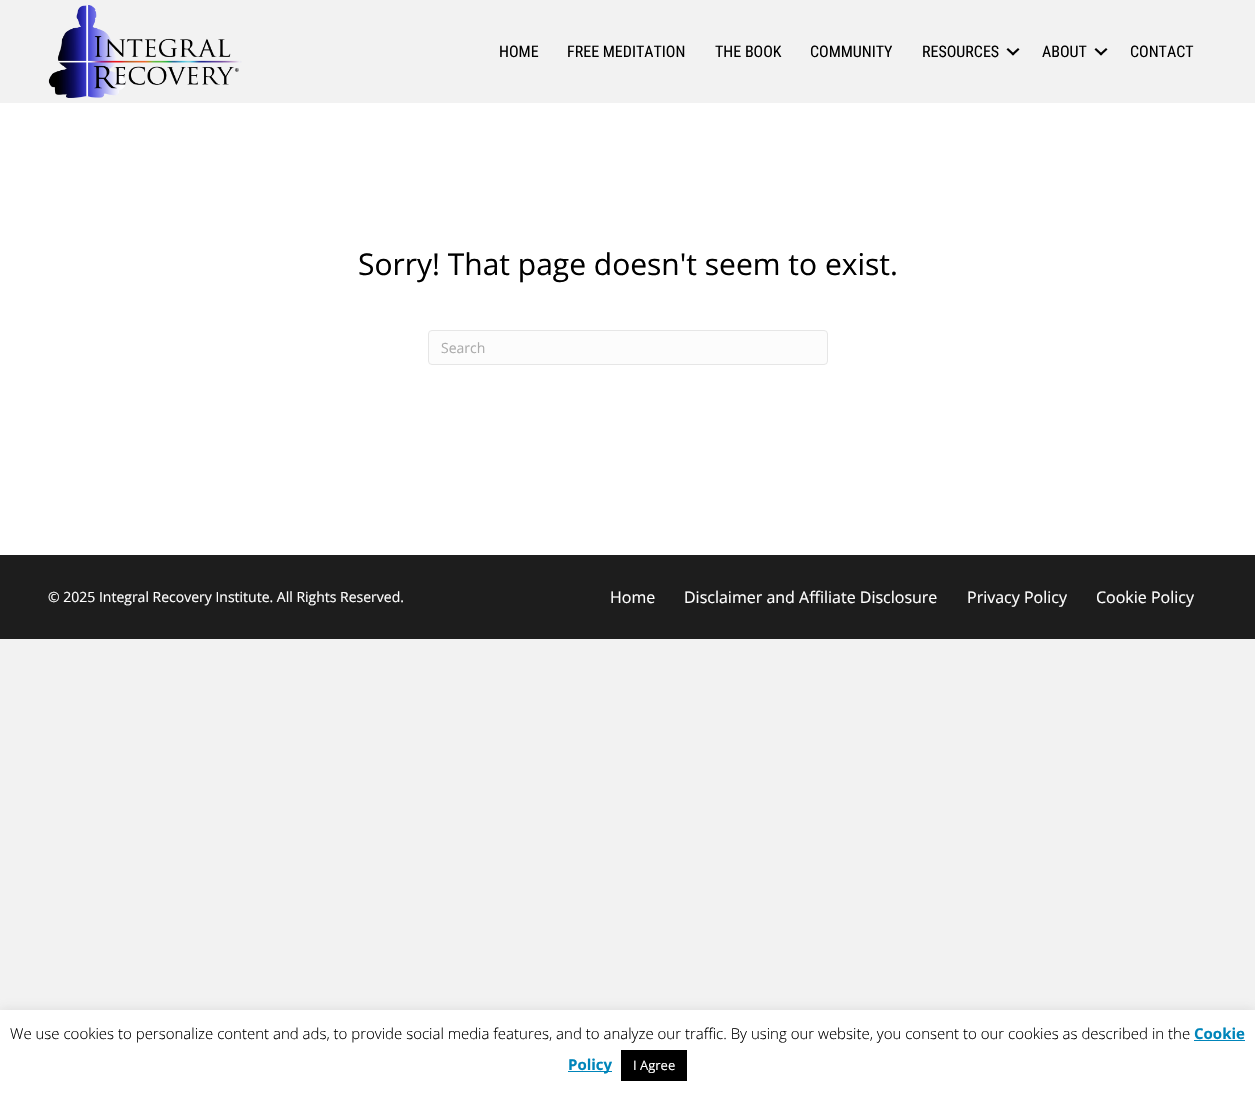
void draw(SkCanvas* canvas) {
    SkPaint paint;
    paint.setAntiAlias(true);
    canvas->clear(0xFFF2F2F2);
    canvas->drawImageRect(SkImages::DeferredFromEncodedData(SkData::MakeFromFileName("img1.png")), SkRect::MakeXYWH(48, 5, 194, 93), SkSamplingOptions());
    SkFont font1(fontMgr->matchFamilyStyle("Roboto Condensed", SkFontStyle::Normal()), 16);
    font1.setSubpixel(true);
    paint.setColor(0xFF000000);
    canvas->drawString("HOME", 499, 57, font1, paint);
    canvas->drawString("FREE MEDITATION", 567, 57, font1, paint);
    canvas->drawString("THE BOOK", 715, 57, font1, paint);
    canvas->drawString("COMMUNITY", 810, 57, font1, paint);
    canvas->drawString("RESOURCES", 922, 57, font1, paint);
    canvas->drawPath(SkPathBuilder().moveTo(1018, 48).lineTo(1019.5f, 49.5f).lineTo(1013, 55.5f).lineTo(1011.5f, 54).close().detach(), paint);
    canvas->drawPath(SkPathBuilder().moveTo(1008, 48).lineTo(1014.5f, 54).lineTo(1013, 55.5f).lineTo(1006.5f, 49.5f).close().detach(), paint);
    canvas->drawString("ABOUT", 1042, 57, font1, paint);
    canvas->drawPath(SkPathBuilder().moveTo(1106, 48).lineTo(1107.5f, 49.5f).lineTo(1101, 55.5f).lineTo(1099.5f, 54).close().detach(), paint);
    canvas->drawPath(SkPathBuilder().moveTo(1096, 48).lineTo(1102.5f, 54).lineTo(1101, 55.5f).lineTo(1094.5f, 49.5f).close().detach(), paint);
    canvas->drawString("CONTACT", 1130, 57, font1, paint);
    paint.setColor(0xFFFFFFFF);
    canvas->drawRect(SkRect::MakeXYWH(0, 103, 1255, 452), paint);
    SkFont font2(fontMgr->matchFamilyStyle("Open Sans", SkFontStyle::Normal()), 30);
    font2.setSubpixel(true);
    paint.setColor(0xFF000000);
    canvas->drawString("Sorry! That page doesn't seem to exist.", 358, 275, font2, paint);
    paint.setColor(0xFFFCFCFC);
    canvas->drawRoundRect(SkRect::MakeXYWH(428.5f, 330.5f, 399, 34), 3.5f, 3.5f, paint);
    paint.setStyle(SkPaint::kStroke_Style);
    paint.setStrokeWidth(1);
    paint.setColor(0xFFE6E6E6);
    canvas->drawRoundRect(SkRect::MakeXYWH(428.5f, 330.5f, 399, 34), 3.5f, 3.5f, paint);
    SkFont font3(fontMgr->matchFamilyStyle("Open Sans", SkFontStyle::Normal()), 14);
    font3.setSubpixel(true);
    paint.setStyle(SkPaint::kFill_Style);
    paint.setColor(0xFFACACAC);
    canvas->drawString("Search", 441, 353, font3, paint);
    paint.setColor(0xFF1D1D1D);
    canvas->drawRect(SkRect::MakeXYWH(0, 555, 1255, 84), paint);
    paint.setColor(0xFFFFFFFF);
    canvas->drawString("© 2025 Integral Recovery Institute. All Rights Reserved.", 48, 602, font3, paint);
    SkFont font4(fontMgr->matchFamilyStyle("Open Sans", SkFontStyle::Normal()), 16);
    font4.setSubpixel(true);
    canvas->drawString("Home", 610, 603, font4, paint);
    canvas->drawString("Disclaimer and Affiliate Disclosure", 684, 603, font4, paint);
    canvas->drawString("Privacy Policy", 967, 603, font4, paint);
    canvas->drawString("Cookie Policy", 1096, 603, font4, paint);
    paint.setColor(0x4DACABAB);
    paint.setMaskFilter(SkMaskFilter::MakeBlur(kNormal_SkBlurStyle, 5));
    canvas->drawRect(SkRect::MakeXYWH(0, 1009, 1255, 83), paint);
    paint.setMaskFilter(nullptr);
    paint.setColor(0xFFFFFFFF);
    canvas->drawRect(SkRect::MakeXYWH(0, 1010, 1255, 83), paint);
    SkFont font5(fontMgr->matchFamilyStyle("Open Sans", SkFontStyle(300, SkFontStyle::kNormal_Width, SkFontStyle::kUpright_Slant)), 15);
    font5.setSubpixel(true);
    paint.setColor(0xFF000000);
    canvas->drawString("We use cookies to personalize content and ads, to provide social media features, and to analyze our traffic. By using our website, you consent to our cookies as described in the", 10, 1039, font5, paint);
    SkFont font6(fontMgr->matchFamilyStyle("Open Sans", SkFontStyle::Bold()), 15);
    font6.setSubpixel(true);
    paint.setColor(0xFF0085BA);
    canvas->drawString("Cookie", 1194, 1039, font6, paint);
    canvas->drawRect(SkRect::MakeXYWH(1194, 1040, 51, 1), paint);
    canvas->drawRect(SkRect::MakeXYWH(568, 1071, 44, 1), paint);
    canvas->drawString("Policy", 568, 1070, font6, paint);
    paint.setColor(0xFF000000);
    canvas->drawRect(SkRect::MakeXYWH(621, 1050, 66, 31), paint);
    SkFont font7(fontMgr->matchFamilyStyle("Open Sans", SkFontStyle::Normal()), 13);
    font7.setSubpixel(true);
    paint.setColor(0xFFFFFFFF);
    canvas->drawString("I Agree", 633, 1070, font7, paint);
}
